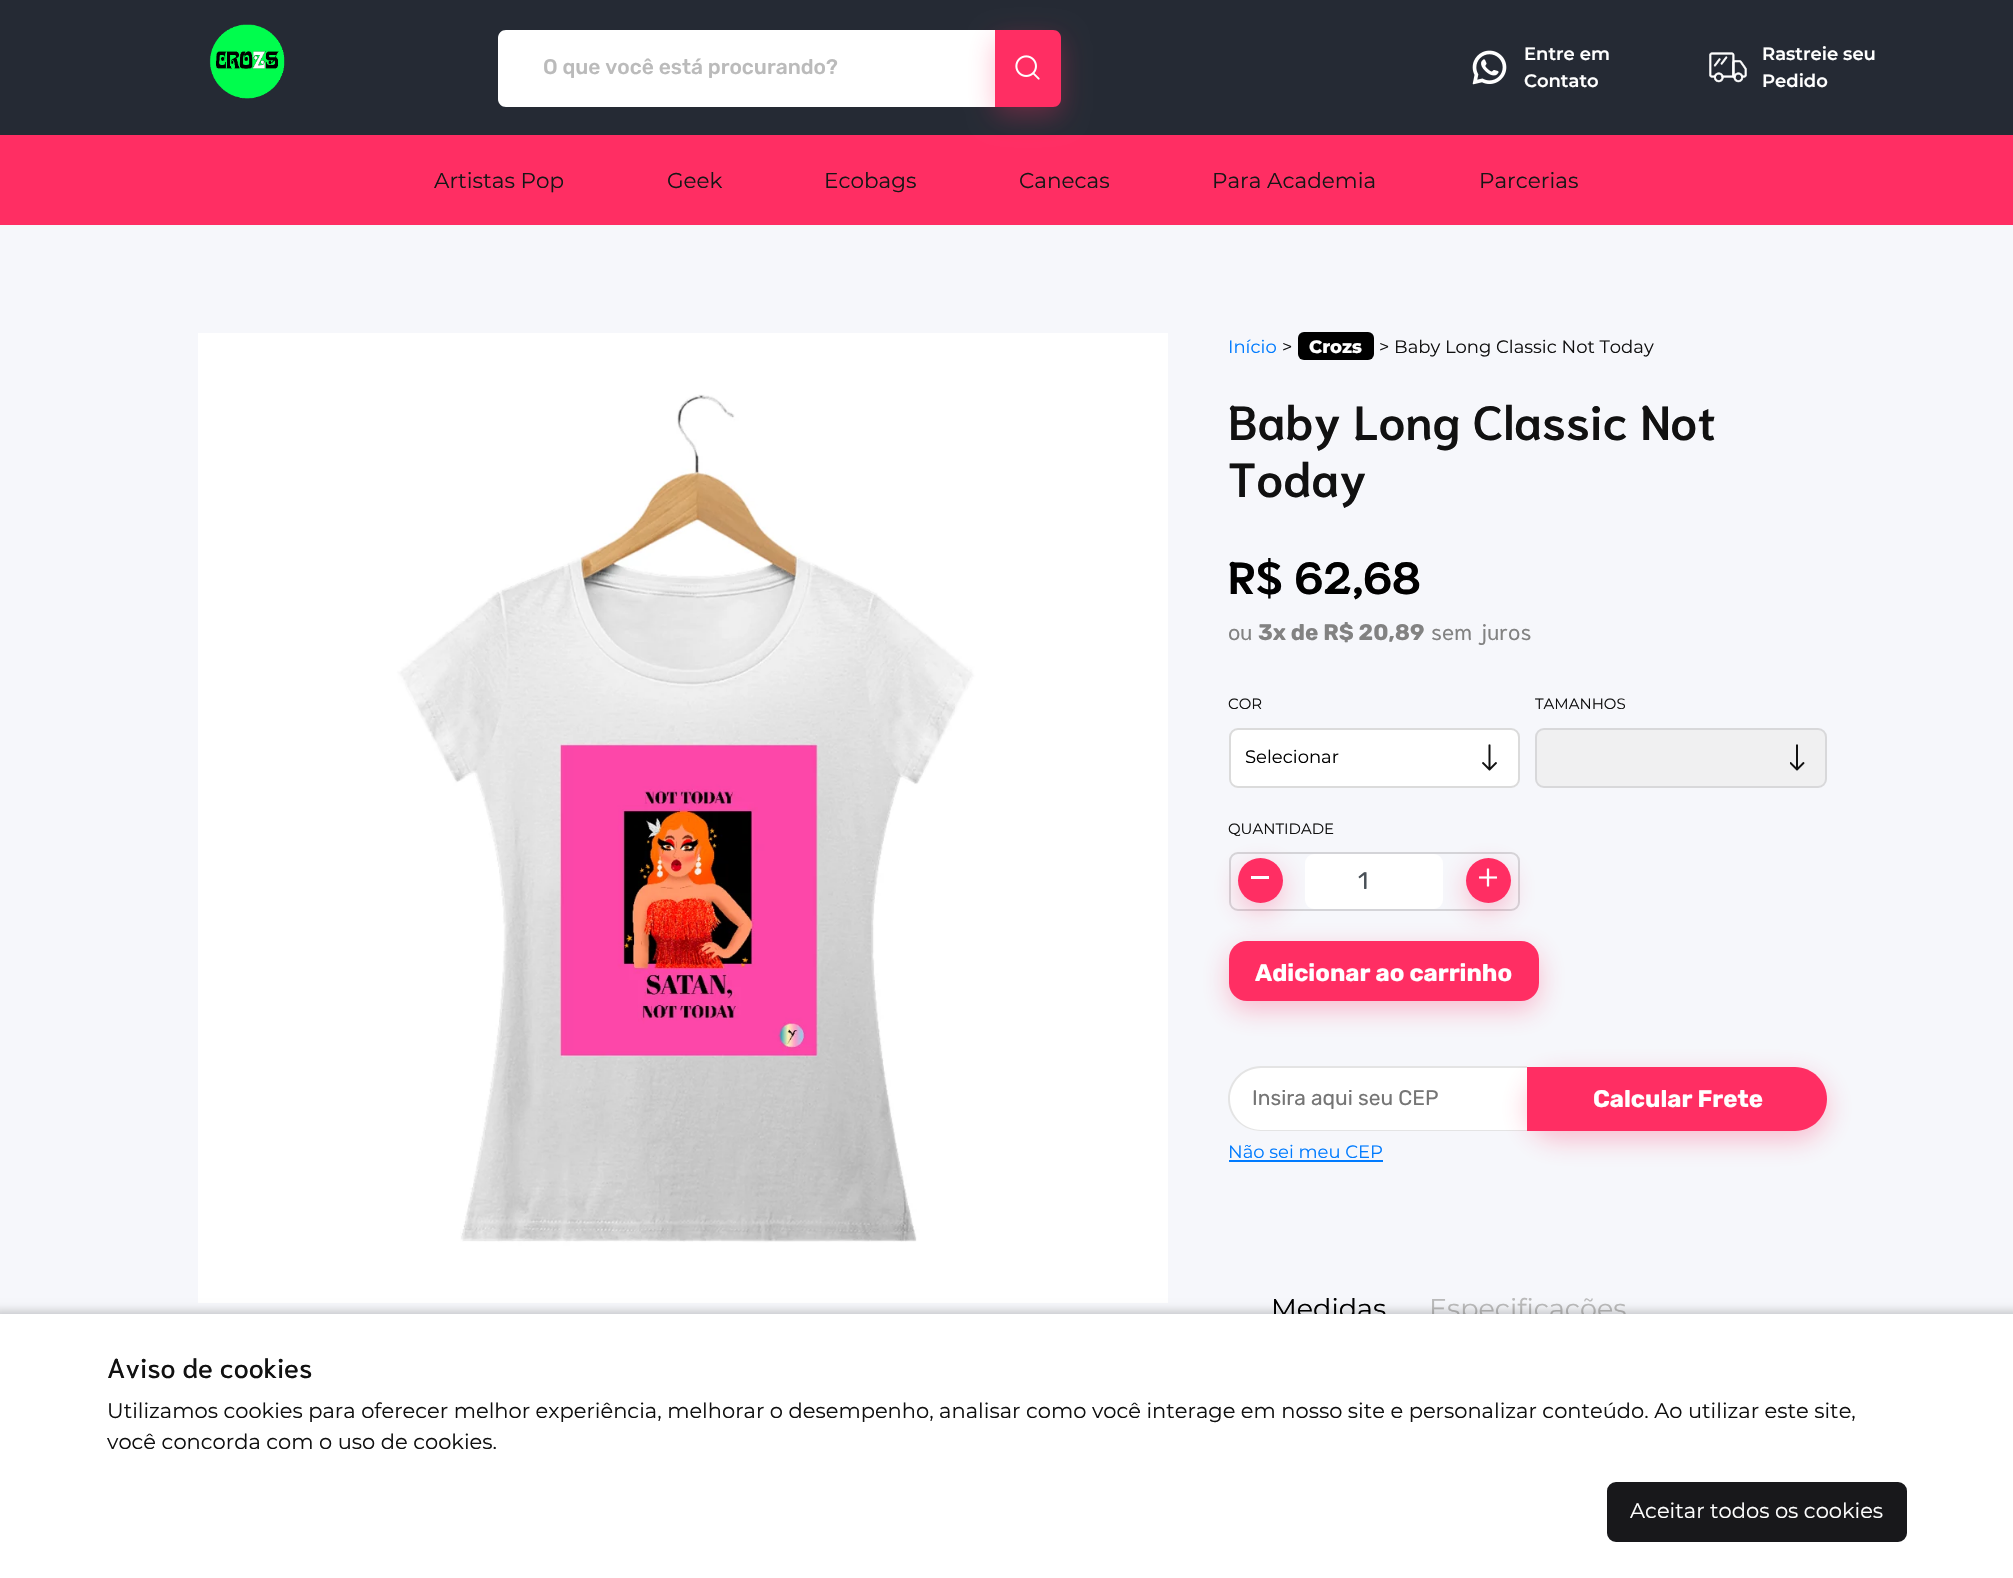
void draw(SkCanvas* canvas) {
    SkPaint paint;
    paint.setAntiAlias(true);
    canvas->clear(0xFFF6F7FB);
    paint.setColor(0xFF252A34);
    canvas->drawRect(SkRect::MakeXYWH(0, 0, 2013, 135), paint);
    canvas->drawImageRect(SkImages::DeferredFromEncodedData(SkData::MakeFromFileName("img1.png")), SkRect::MakeXYWH(209, 24, 76, 75), SkSamplingOptions());
    paint.setColor(0xFFFFFFFF);
    canvas->drawPath(SkPathBuilder().moveTo(506, 30).lineTo(995, 30).lineTo(995, 107).lineTo(506, 107).cubicTo(501.5f, 107, 498, 103.5f, 498, 99).lineTo(498, 38).cubicTo(498, 33.5f, 501.5f, 30, 506, 30).close().detach(), paint);
    SkFont font1(fontMgr->matchFamilyStyle("Rubik", SkFontStyle(500, SkFontStyle::kNormal_Width, SkFontStyle::kUpright_Slant)), 21);
    font1.setSubpixel(true);
    paint.setColor(0xFFBBBBBB);
    canvas->drawString("O que você está procurando?", 543, 74, font1, paint);
    paint.setColor(0xFFFF2E63);
    canvas->drawRect(SkRect::MakeXYWH(0, 135, 2013, 90), paint);
    paint.setColor(0x4DFF2E63);
    paint.setMaskFilter(SkMaskFilter::MakeBlur(kNormal_SkBlurStyle, 13.5f));
    canvas->drawRoundRect(SkRect::MakeXYWH(995, 39, 66, 77), 8, 8, paint);
    paint.setMaskFilter(nullptr);
    paint.setColor(0xFFFF2E63);
    canvas->drawPath(SkPathBuilder().moveTo(995, 30).lineTo(1053, 30).cubicTo(1057.5f, 30, 1061, 33.5f, 1061, 38).lineTo(1061, 99).cubicTo(1061, 103.5f, 1057.5f, 107, 1053, 107).lineTo(995, 107).close().detach(), paint);
    canvas->drawImageRect(SkImages::DeferredFromEncodedData(SkData::MakeFromFileName("img2.png")), SkRect::MakeXYWH(1015, 55, 25, 25), SkSamplingOptions());
    canvas->drawImageRect(SkImages::DeferredFromEncodedData(SkData::MakeFromFileName("img3.png")), SkRect::MakeXYWH(1472, 50, 35, 35), SkSamplingOptions());
    SkFont font2(fontMgr->matchFamilyStyle("Montserrat", SkFontStyle(600, SkFontStyle::kNormal_Width, SkFontStyle::kUpright_Slant)), 18);
    font2.setSubpixel(true);
    paint.setColor(0xFFFFFFFF);
    canvas->drawString("Entre em", 1524, 60, font2, paint);
    canvas->drawString("Contato", 1524, 87, font2, paint);
    canvas->drawImageRect(SkImages::DeferredFromEncodedData(SkData::MakeFromFileName("img4.png")), SkRect::MakeXYWH(1709, 52, 38, 31), SkSamplingOptions());
    canvas->drawString("Rastreie seu", 1762, 60, font2, paint);
    canvas->drawString("Pedido", 1762, 87, font2, paint);
    SkFont font3(fontMgr->matchFamilyStyle("Montserrat", SkFontStyle::Normal()), 21.5f);
    font3.setSubpixel(true);
    paint.setColor(0xFF171616);
    canvas->drawString("Artistas Pop", 434, 188, font3, paint);
    canvas->drawString("Geek", 667, 188, font3, paint);
    canvas->drawString("Ecobags", 824, 188, font3, paint);
    canvas->drawString("Canecas", 1019, 188, font3, paint);
    canvas->drawString("Para Academia", 1212, 188, font3, paint);
    canvas->drawString("Parcerias", 1479, 188, font3, paint);
    canvas->drawImageRect(SkImages::DeferredFromEncodedData(SkData::MakeFromFileName("img5.png")), SkRect::MakeXYWH(198, 333, 970, 970), SkSamplingOptions());
    SkFont font4(fontMgr->matchFamilyStyle("Montserrat", SkFontStyle::Normal()), 18);
    font4.setSubpixel(true);
    paint.setColor(0xFF007BFF);
    canvas->drawString("Início", 1228, 353, font4, paint);
    paint.setColor(0xFF111111);
    canvas->drawString(">", 1282, 353, font4, paint);
    paint.setColor(0xFF000000);
    canvas->drawRoundRect(SkRect::MakeXYWH(1298, 332, 76, 28), 6, 6, paint);
    SkFont font5(fontMgr->matchFamilyStyle("Montserrat", SkFontStyle(800, SkFontStyle::kNormal_Width, SkFontStyle::kUpright_Slant)), 18);
    font5.setSubpixel(true);
    paint.setColor(0xFFFFFFFF);
    canvas->drawString("Crozs", 1309, 353, font5, paint);
    paint.setColor(0xFF111111);
    canvas->drawString("> Baby Long Classic Not Today", 1379, 353, font4, paint);
    SkFont font6(fontMgr->matchFamilyStyle("Niramit", SkFontStyle(600, SkFontStyle::kNormal_Width, SkFontStyle::kUpright_Slant)), 48);
    font6.setSubpixel(true);
    canvas->drawString("Baby Long Classic Not", 1228, 440, font6, paint);
    canvas->drawString("Today", 1228, 497, font6, paint);
    SkFont font7(fontMgr->matchFamilyStyle("Niramit", SkFontStyle::Bold()), 45);
    font7.setSubpixel(true);
    paint.setColor(0xFF000000);
    canvas->drawString("R$ 62,68", 1228, 594, font7, paint);
    SkFont font8(fontMgr->matchFamilyStyle("Niramit", SkFontStyle::Normal()), 22.5f);
    font8.setSubpixel(true);
    paint.setColor(0xFF828282);
    canvas->drawString("ou", 1228, 640, font8, paint);
    SkFont font9(fontMgr->matchFamilyStyle("Rubik", SkFontStyle::Bold()), 22.5f);
    font9.setSubpixel(true);
    canvas->drawString("3x de R$ 20,89", 1258, 640, font9, paint);
    canvas->drawString("sem juros", 1431, 640, font8, paint);
    SkFont font10(fontMgr->matchFamilyStyle("Montserrat", SkFontStyle::Normal()), 15);
    font10.setSubpixel(true);
    paint.setColor(0xFF111111);
    canvas->drawString("COR", 1228, 709, font10, paint);
    paint.setColor(0xFFFFFFFF);
    canvas->drawRoundRect(SkRect::MakeXYWH(1229, 728, 291, 60), 9, 9, paint);
    paint.setStyle(SkPaint::kStroke_Style);
    paint.setStrokeWidth(2);
    paint.setColor(0x24000000);
    canvas->drawRoundRect(SkRect::MakeXYWH(1230, 729, 289, 58), 8, 8, paint);
    paint.setStyle(SkPaint::kFill_Style);
    paint.setColor(0xFF000000);
    canvas->drawString("Selecionar", 1245, 763, font4, paint);
    canvas->drawImageRect(SkImages::DeferredFromEncodedData(SkData::MakeFromFileName("img6.png")), SkRect::MakeXYWH(1482, 744, 15, 27), SkSamplingOptions());
    paint.setColor(0xFF111111);
    canvas->drawString("TAMANHOS", 1535, 709, font10, paint);
    paint.setColor(0xFFF0F0F1);
    canvas->drawRoundRect(SkRect::MakeXYWH(1535, 728, 292, 60), 9, 9, paint);
    paint.setStyle(SkPaint::kStroke_Style);
    paint.setColor(0x244A4A4B);
    canvas->drawRoundRect(SkRect::MakeXYWH(1536, 729, 290, 58), 8, 8, paint);
    canvas->drawImageRect(SkImages::DeferredFromEncodedData(SkData::MakeFromFileName("img7.png")), SkRect::MakeXYWH(1790, 744, 15, 27), SkSamplingOptions());
    paint.setStyle(SkPaint::kFill_Style);
    paint.setColor(0xFF111111);
    canvas->drawString("QUANTIDADE", 1228, 834, font10, paint);
    paint.setColor(0x4DFF2E63);
    paint.setMaskFilter(SkMaskFilter::MakeBlur(kNormal_SkBlurStyle, 13.5f));
    canvas->drawRoundRect(SkRect::MakeXYWH(1229, 950, 310, 60), 18, 18, paint);
    paint.setMaskFilter(nullptr);
    paint.setStyle(SkPaint::kStroke_Style);
    paint.setColor(0xFFD4D4D8);
    canvas->drawRoundRect(SkRect::MakeXYWH(1230, 853, 289, 57), 8, 8, paint);
    paint.setStyle(SkPaint::kFill_Style);
    paint.setColor(0xFFFF2E63);
    canvas->drawRoundRect(SkRect::MakeXYWH(1229, 941, 310, 60), 18, 18, paint);
    paint.setColor(0x4DFF2E63);
    paint.setMaskFilter(SkMaskFilter::MakeBlur(kNormal_SkBlurStyle, 13.5f));
    canvas->drawRoundRect(SkRect::MakeXYWH(1238, 867, 45, 45), 22.5f, 22.5f, paint);
    paint.setMaskFilter(nullptr);
    paint.setColor(0xFFFF2E63);
    canvas->drawCircle(1260.5f, 880.5f, 22.5f, paint);
    paint.setColor(0xFFFFFFFF);
    canvas->drawRect(SkRect::MakeXYWH(1251, 876, 18, 3), paint);
    paint.setColor(0x4DFF2E63);
    paint.setMaskFilter(SkMaskFilter::MakeBlur(kNormal_SkBlurStyle, 13.5f));
    canvas->drawRoundRect(SkRect::MakeXYWH(1466, 867, 45, 45), 22.5f, 22.5f, paint);
    paint.setMaskFilter(nullptr);
    paint.setColor(0xFFFFFFFF);
    canvas->drawRoundRect(SkRect::MakeXYWH(1305, 854, 138, 55), 9, 9, paint);
    SkFont font11(fontMgr->matchFamilyStyle("Rubik", SkFontStyle::Normal()), 24);
    font11.setSubpixel(true);
    paint.setColor(0xFF495057);
    canvas->drawString("1", 1358, 889, font11, paint);
    paint.setColor(0xFFFF2E63);
    canvas->drawCircle(1488.5f, 880.5f, 22.5f, paint);
    canvas->drawImageRect(SkImages::DeferredFromEncodedData(SkData::MakeFromFileName("img8.png")), SkRect::MakeXYWH(1479, 868, 18, 19), SkSamplingOptions());
    SkFont font12(fontMgr->matchFamilyStyle("Rubik", SkFontStyle::Bold()), 24);
    font12.setSubpixel(true);
    paint.setColor(0xFFFFFFFF);
    canvas->drawString("Adicionar ao carrinho", 1255, 981, font12, paint);
    canvas->drawPath(SkPathBuilder().moveTo(1261, 1067).lineTo(1527, 1067).lineTo(1527, 1131).lineTo(1261, 1131).cubicTo(1243.5f, 1131, 1229, 1116.5f, 1229, 1099).cubicTo(1229, 1081.5f, 1243.5f, 1067, 1261, 1067).close().detach(), paint);
    paint.setColor(0xFFE4E4E4);
    canvas->drawPath(SkPathBuilder(SkPathFillType::kEvenOdd).moveTo(1261, 1066).lineTo(1527, 1066).lineTo(1527, 1131).lineTo(1261, 1131).cubicTo(1243, 1131, 1228, 1117, 1228, 1099).cubicTo(1228, 1081, 1243, 1066, 1261, 1066).close().moveTo(1261, 1068).lineTo(1527, 1068).lineTo(1527, 1130).lineTo(1261, 1130).cubicTo(1244, 1130, 1230, 1116, 1230, 1099).cubicTo(1230, 1082, 1244, 1068, 1261, 1068).close().detach(), paint);
    SkFont font13(fontMgr->matchFamilyStyle("Rubik", SkFontStyle::Normal()), 21);
    font13.setSubpixel(true);
    paint.setColor(0xFF757575);
    canvas->drawString("Insira aqui seu CEP", 1252, 1105, font13, paint);
    paint.setColor(0x4DFF2E63);
    paint.setMaskFilter(SkMaskFilter::MakeBlur(kNormal_SkBlurStyle, 13.5f));
    canvas->drawRoundRect(SkRect::MakeXYWH(1527, 1076, 300, 64), 32, 32, paint);
    paint.setMaskFilter(nullptr);
    paint.setColor(0xFFFF2E63);
    canvas->drawPath(SkPathBuilder().moveTo(1527, 1067).lineTo(1795, 1067).cubicTo(1812.5f, 1067, 1827, 1081.5f, 1827, 1099).cubicTo(1827, 1116.5f, 1812.5f, 1131, 1795, 1131).lineTo(1527, 1131).close().detach(), paint);
    paint.setColor(0xFFFFFFFF);
    canvas->drawString("Calcular Frete", 1593, 1107, font12, paint);
    paint.setColor(0xFF007BFF);
    canvas->drawString("Não sei meu CEP", 1228, 1158, font4, paint);
    canvas->drawRect(SkRect::MakeXYWH(1229, 1160, 154, 2), paint);
    SkFont font14(fontMgr->matchFamilyStyle("Montserrat", SkFontStyle::Normal()), 27);
    font14.setSubpixel(true);
    paint.setColor(0xFF000000);
    canvas->drawString("Medidas", 1271, 1318, font14, paint);
    paint.setColor(0xFFBBBBBB);
    canvas->drawString("Especificações", 1429, 1318, font14, paint);
    paint.setColor(0x33000000);
    paint.setMaskFilter(SkMaskFilter::MakeBlur(kNormal_SkBlurStyle, 4.5f));
    canvas->drawRect(SkRect::MakeXYWH(-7, 1311, 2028, 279), paint);
    paint.setMaskFilter(nullptr);
    paint.setColor(0xFFFFFFFF);
    canvas->drawRect(SkRect::MakeXYWH(0, 1314, 2013, 264), paint);
    SkFont font15(fontMgr->matchFamilyStyle("Niramit", SkFontStyle(500, SkFontStyle::kNormal_Width, SkFontStyle::kUpright_Slant)), 27);
    font15.setSubpixel(true);
    paint.setColor(0xFF111111);
    canvas->drawString("Aviso de cookies", 107, 1378, font15, paint);
    SkFont font16(fontMgr->matchFamilyStyle("Montserrat", SkFontStyle::Normal()), 21);
    font16.setSubpixel(true);
    canvas->drawString("Utilizamos cookies para oferecer melhor experiência, melhorar o desempenho, analisar como você interage em nosso site e personalizar conteúdo. Ao utilizar este site,", 107, 1418, font16, paint);
    canvas->drawString("você concorda com o uso de cookies.", 107, 1449, font16, paint);
    paint.setColor(0xFF18181B);
    canvas->drawRoundRect(SkRect::MakeXYWH(1608, 1483, 298, 58), 8, 8, paint);
    paint.setStyle(SkPaint::kStroke_Style);
    canvas->drawRoundRect(SkRect::MakeXYWH(1608, 1483, 298, 58), 8, 8, paint);
    paint.setStyle(SkPaint::kFill_Style);
    paint.setColor(0xFFFFFFFF);
    canvas->drawString("Aceitar todos os cookies", 1630, 1518, font16, paint);
}
